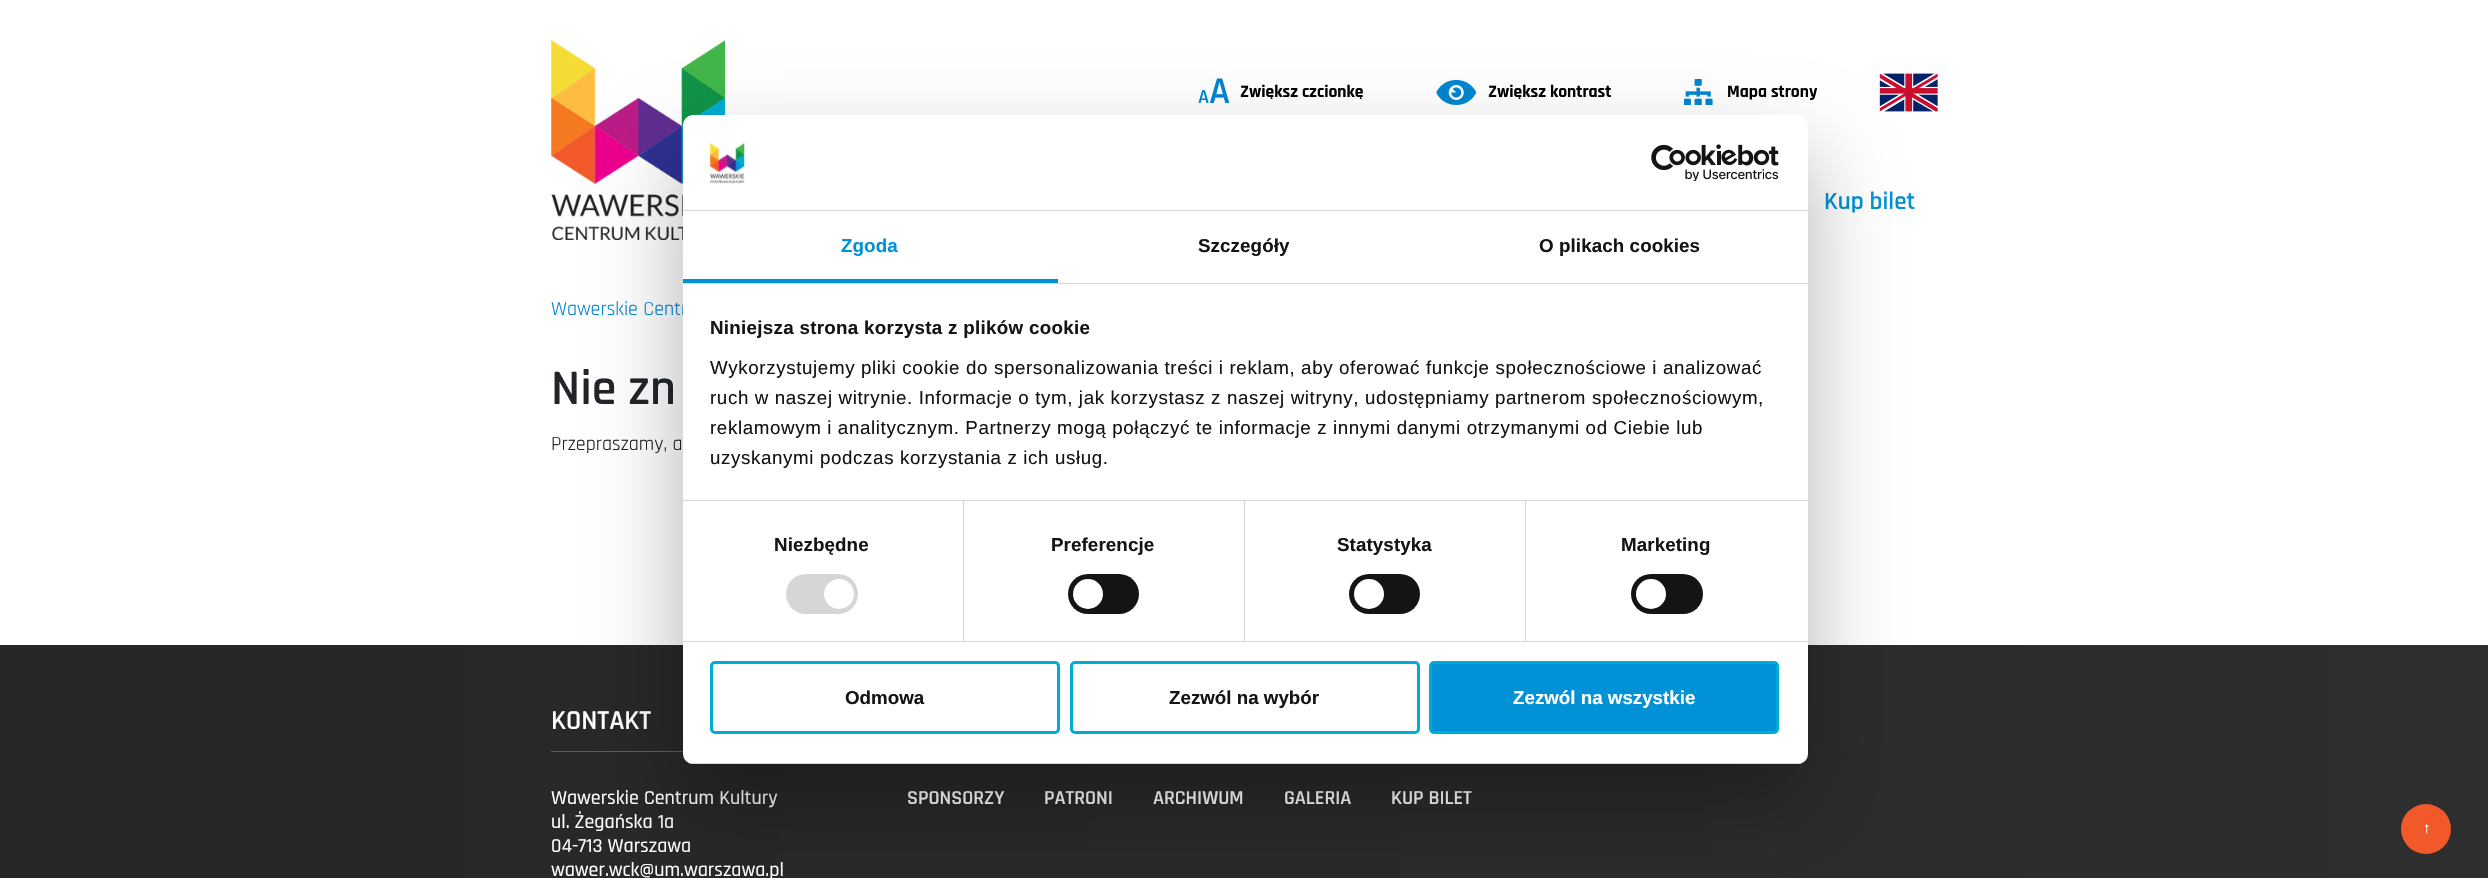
void draw(SkCanvas* canvas) {
    SkPaint paint;
    paint.setAntiAlias(true);
    auto spacedText = [&](const char* s, float x, float y, const SkFont& font, const SkPaint& ink, float letter, float word) {
        std::vector<SkGlyphID> glyphs(font.countText(s, strlen(s), SkTextEncoding::kUTF8));
        std::vector<float> xs(glyphs.size());
        font.textToGlyphs(s, strlen(s), SkTextEncoding::kUTF8, glyphs);
        font.getXPos(glyphs, xs, x);
        float extra = 0;
        for (size_t i = 0; i < glyphs.size(); i++) {
            xs[i] += extra;
            extra += letter + word * (glyphs[i] == font.unicharToGlyph(' '));
        }
        canvas->drawTextBlob(SkTextBlob::MakeFromPosHGlyphs(glyphs, xs, y, font), 0, 0, ink);
    };
    canvas->clear(0xFFFFFFFF);
    canvas->drawImageRect(SkImages::DeferredFromEncodedData(SkData::MakeFromFileName("img1.png")), SkRect::MakeXYWH(551, 40, 174, 200), SkSamplingOptions());
    SkFont font1(fontMgr->matchFamilyStyle("Rajdhani", SkFontStyle(600, SkFontStyle::kNormal_Width, SkFontStyle::kUpright_Slant)), 20);
    font1.setSubpixel(true);
    paint.setColor(0xFF0086D1);
    canvas->drawString("A", 1198, 103, font1, paint);
    SkFont font2(fontMgr->matchFamilyStyle("Rajdhani", SkFontStyle(600, SkFontStyle::kNormal_Width, SkFontStyle::kUpright_Slant)), 38);
    font2.setSubpixel(true);
    canvas->drawString("A", 1209, 103, font2, paint);
    SkFont font3(fontMgr->matchFamilyStyle("Rajdhani", SkFontStyle::Bold()), 17.5f);
    font3.setSubpixel(true);
    paint.setColor(0xFF000000);
    canvas->drawString("Zwiększ czcionkę", 1240, 97, font3, paint);
    canvas->drawImageRect(SkImages::DeferredFromEncodedData(SkData::MakeFromFileName("img2.png")), SkRect::MakeXYWH(1436, 80, 40, 25), SkSamplingOptions());
    canvas->drawString("Zwiększ kontrast", 1488, 97, font3, paint);
    canvas->drawImageRect(SkImages::DeferredFromEncodedData(SkData::MakeFromFileName("img3.png")), SkRect::MakeXYWH(1684, 79, 29, 26), SkSamplingOptions());
    canvas->drawString("Mapa strony", 1727, 97, font3, paint);
    canvas->drawImageRect(SkImages::DeferredFromEncodedData(SkData::MakeFromFileName("img4.png")), SkRect::MakeXYWH(1879, 73, 59, 39), SkSamplingOptions());
    SkFont font4(fontMgr->matchFamilyStyle("Rajdhani", SkFontStyle(600, SkFontStyle::kNormal_Width, SkFontStyle::kUpright_Slant)), 25);
    font4.setSubpixel(true);
    paint.setColor(0xFF0091D7);
    canvas->drawString("Kup bilet", 1824, 209, font4, paint);
    SkFont font5(fontMgr->matchFamilyStyle("Rajdhani", SkFontStyle::Normal()), 20);
    font5.setSubpixel(true);
    paint.setColor(0xFF0086D1);
    canvas->drawString("Wawerskie Centr", 551, 315, font5, paint);
    SkFont font6(fontMgr->matchFamilyStyle("Rajdhani", SkFontStyle(600, SkFontStyle::kNormal_Width, SkFontStyle::kUpright_Slant)), 50);
    font6.setSubpixel(true);
    paint.setColor(0xFF212529);
    canvas->drawString("Nie zn", 551, 404, font6, paint);
    canvas->drawString("Przepraszamy, a", 551, 450, font5, paint);
    {
        const SkColor colors[] = {0xFF262626, 0xFF2E2E2E};
        const float stops[] = {0, 1};
        const SkPoint ends[] = {{0, 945}, {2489, 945}};
        paint.setShader(SkGradientShader::MakeLinear(ends, colors, stops, 2, SkTileMode::kClamp));
        paint.setAlpha(255);
    }
    canvas->drawRect(SkRect::MakeXYWH(0, 645, 2488, 233), paint);
    paint.setShader(nullptr);
    paint.setColor(0xFF5D5D5D);
    canvas->drawRect(SkRect::MakeXYWH(551, 751, 132, 1), paint);
    SkFont font7(fontMgr->matchFamilyStyle("Rajdhani", SkFontStyle(600, SkFontStyle::kNormal_Width, SkFontStyle::kUpright_Slant)), 27.5f);
    font7.setSubpixel(true);
    paint.setColor(0xFFFFFFFF);
    canvas->drawString("KONTAKT", 551, 729, font7, paint);
    SkFont font8(fontMgr->matchFamilyStyle("Rajdhani", SkFontStyle(500, SkFontStyle::kNormal_Width, SkFontStyle::kUpright_Slant)), 20);
    font8.setSubpixel(true);
    canvas->drawString("Wawerskie Centrum Kultury", 551, 804, font8, paint);
    canvas->drawString("ul. Żegańska 1a", 551, 828, font8, paint);
    canvas->drawString("04-713 Warszawa", 551, 852, font8, paint);
    canvas->drawString("wawer.wck@um.warszawa.pl", 551, 876, font8, paint);
    canvas->drawString("SPONSORZY", 907, 804, font1, paint);
    canvas->drawString("PATRONI", 1044, 804, font1, paint);
    canvas->drawString("ARCHIWUM", 1153, 804, font1, paint);
    canvas->drawString("GALERIA", 1284, 804, font1, paint);
    canvas->drawString("KUP BILET", 1391, 804, font1, paint);
    paint.setColor(0x4D000000);
    paint.setMaskFilter(SkMaskFilter::MakeBlur(kNormal_SkBlurStyle, 42.5f));
    canvas->drawRoundRect(SkRect::MakeXYWH(683, 155, 1125, 649), 10, 10, paint);
    paint.setMaskFilter(nullptr);
    paint.setColor(0xFFFFFFFF);
    canvas->drawRoundRect(SkRect::MakeXYWH(683, 115, 1125, 649), 10, 10, paint);
    paint.setColor(0xFFD6D6D6);
    canvas->drawRect(SkRect::MakeXYWH(683, 210, 1125, 1), paint);
    canvas->drawImageRect(SkImages::DeferredFromEncodedData(SkData::MakeFromFileName("img5.png")), SkRect::MakeXYWH(710, 143, 35, 41), SkSamplingOptions());
    canvas->drawImageRect(SkImages::DeferredFromEncodedData(SkData::MakeFromFileName("img6.png")), SkRect::MakeXYWH(1651, 144, 128, 37), SkSamplingOptions());
    canvas->drawRect(SkRect::MakeXYWH(683, 283, 1125, 1), paint);
    paint.setColor(0xFF0091D7);
    canvas->drawRect(SkRect::MakeXYWH(683, 279, 375, 4), paint);
    SkFont font9(fontMgr->matchFamilyStyle("Liberation Sans", SkFontStyle::Bold()), 18.75f);
    font9.setSubpixel(true);
    spacedText("Zgoda", 841, 252, font9, paint, 0.1f, 0);
    paint.setColor(0xFF141414);
    spacedText("Szczegóły", 1198, 252, font9, paint, 0.1f, 0);
    spacedText("O plikach cookies", 1539, 252, font9, paint, 0.1f, 0);
    paint.setColor(0xFFD6D6D6);
    canvas->drawRect(SkRect::MakeXYWH(683, 500, 1125, 1), paint);
    paint.setColor(0xFF141414);
    spacedText("Niniejsza strona korzysta z plików cookie", 710, 334, font9, paint, 0.3f, 0);
    SkFont font10(fontMgr->matchFamilyStyle("Liberation Sans", SkFontStyle::Normal()), 18.75f);
    font10.setSubpixel(true);
    spacedText("Wykorzystujemy pliki cookie do spersonalizowania treści i reklam, aby oferować funkcje społecznościowe i analizować", 710, 374, font10, paint, 0.62f, 0);
    spacedText("ruch w naszej witrynie. Informacje o tym, jak korzystasz z naszej witryny, udostępniamy partnerom społecznościowym,", 710, 404, font10, paint, 0.62f, 0);
    spacedText("reklamowym i analitycznym. Partnerzy mogą połączyć te informacje z innymi danymi otrzymanymi od Ciebie lub", 710, 434, font10, paint, 0.62f, 0);
    spacedText("uzyskanymi podczas korzystania z ich usług.", 710, 464, font10, paint, 0.62f, 0);
    paint.setColor(0xFFD6D6D6);
    canvas->drawRect(SkRect::MakeXYWH(683, 641, 1125, 1), paint);
    canvas->drawRect(SkRect::MakeXYWH(963, 501, 1, 140), paint);
    paint.setColor(0xFF141414);
    spacedText("Niezbędne", 774, 551, font9, paint, 0.1f, 0);
    paint.setColor(0xFFD6D6D6);
    canvas->drawRoundRect(SkRect::MakeXYWH(786, 574, 72, 40), 20, 20, paint);
    paint.setColor(0xFFFFFFFF);
    canvas->drawCircle(839, 594, 15, paint);
    paint.setColor(0xFFD6D6D6);
    canvas->drawRect(SkRect::MakeXYWH(1244, 501, 1, 140), paint);
    paint.setColor(0xFF141414);
    spacedText("Preferencje", 1051, 551, font9, paint, 0.1f, 0);
    canvas->drawRoundRect(SkRect::MakeXYWH(1068, 574, 71, 40), 20, 20, paint);
    paint.setColor(0xFFFFFFFF);
    canvas->drawCircle(1088, 594, 15, paint);
    paint.setColor(0xFFD6D6D6);
    canvas->drawRect(SkRect::MakeXYWH(1525, 501, 1, 140), paint);
    paint.setColor(0xFF141414);
    spacedText("Statystyka", 1337, 551, font9, paint, 0.1f, 0);
    canvas->drawRoundRect(SkRect::MakeXYWH(1349, 574, 71, 40), 20, 20, paint);
    paint.setColor(0xFFFFFFFF);
    canvas->drawCircle(1369, 594, 15, paint);
    paint.setColor(0xFF141414);
    spacedText("Marketing", 1621, 551, font9, paint, 0.1f, 0);
    canvas->drawRoundRect(SkRect::MakeXYWH(1631, 574, 72, 40), 20, 20, paint);
    paint.setColor(0xFFFFFFFF);
    canvas->drawCircle(1651, 594, 15, paint);
    canvas->save();
    canvas->clipPath(SkPathBuilder().moveTo(693, 115).lineTo(1798, 115).cubicTo(1803.5f, 115, 1808, 119.5f, 1808, 125).lineTo(1808, 754).cubicTo(1808, 759.5f, 1803.5f, 764, 1798, 764).lineTo(693, 764).cubicTo(687.5f, 764, 683, 759.5f, 683, 754).lineTo(683, 125).cubicTo(683, 119.5f, 687.5f, 115, 693, 115).close().detach(), true);
    paint.setColor(0xFFD6D6D6);
    canvas->drawRect(SkRect::MakeXYWH(683, 763, 1125, 1), paint);
    canvas->restore();
    paint.setStyle(SkPaint::kStroke_Style);
    paint.setStrokeWidth(3);
    paint.setColor(0xFF00ACD4);
    canvas->drawRoundRect(SkRect::MakeXYWH(711.5f, 662.5f, 347, 70), 3.5f, 3.5f, paint);
    paint.setStyle(SkPaint::kFill_Style);
    paint.setColor(0xFF141414);
    canvas->drawString("Odmowa", 845, 704, font9, paint);
    paint.setStyle(SkPaint::kStroke_Style);
    paint.setColor(0xFF00ACD4);
    canvas->drawRoundRect(SkRect::MakeXYWH(1071.5f, 662.5f, 347, 70), 3.5f, 3.5f, paint);
    paint.setStyle(SkPaint::kFill_Style);
    paint.setColor(0xFF141414);
    canvas->drawString("Zezwól na wybór", 1169, 704, font9, paint);
    paint.setColor(0xFF0091D7);
    canvas->drawRoundRect(SkRect::MakeXYWH(1430.5f, 662.5f, 347, 70), 3.5f, 3.5f, paint);
    paint.setStyle(SkPaint::kStroke_Style);
    paint.setColor(0xFF00ACD4);
    canvas->drawRoundRect(SkRect::MakeXYWH(1430.5f, 662.5f, 347, 70), 3.5f, 3.5f, paint);
    paint.setStyle(SkPaint::kFill_Style);
    paint.setColor(0xFFFFFFFF);
    canvas->drawString("Zezwól na wszystkie", 1513, 704, font9, paint);
    paint.setColor(0xFFF1592A);
    canvas->drawCircle(2426, 829, 25, paint);
    SkFont font11(fontMgr->matchFamilyStyle("Liberation Sans", SkFontStyle::Normal()), 15);
    font11.setSubpixel(true);
    paint.setColor(0xFFFFFFFF);
    canvas->drawString("↑", 2423, 833, font11, paint);
}
